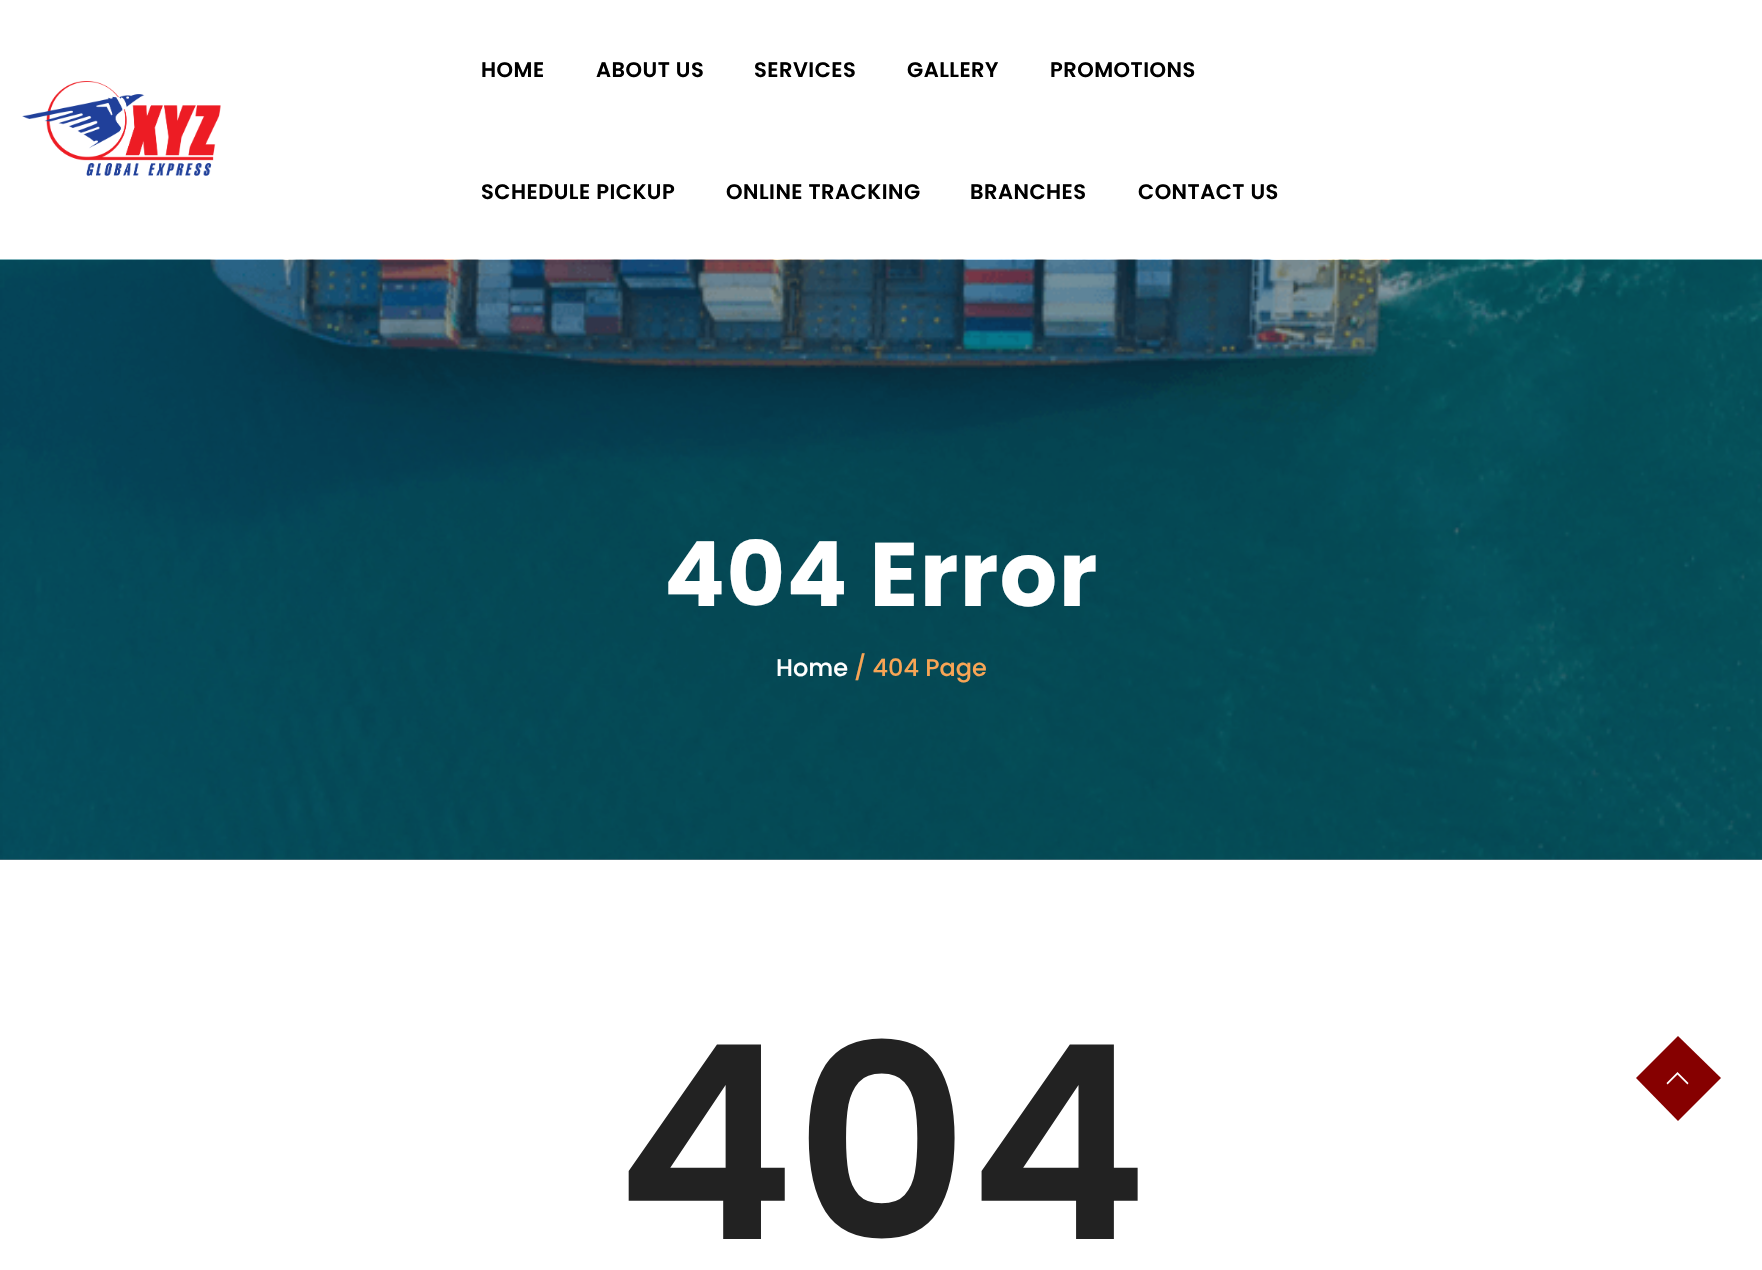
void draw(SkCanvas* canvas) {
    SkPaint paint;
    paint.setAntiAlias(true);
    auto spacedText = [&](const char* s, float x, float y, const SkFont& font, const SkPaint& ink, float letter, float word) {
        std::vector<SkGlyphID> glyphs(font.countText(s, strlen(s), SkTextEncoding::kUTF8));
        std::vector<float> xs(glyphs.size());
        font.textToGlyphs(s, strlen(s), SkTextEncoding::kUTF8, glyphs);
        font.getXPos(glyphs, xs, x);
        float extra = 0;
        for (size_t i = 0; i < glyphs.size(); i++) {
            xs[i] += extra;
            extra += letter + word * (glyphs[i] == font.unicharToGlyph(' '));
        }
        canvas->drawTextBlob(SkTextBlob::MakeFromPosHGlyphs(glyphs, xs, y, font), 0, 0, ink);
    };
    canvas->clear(0xFFFFFFFF);
    canvas->drawImageRect(SkImages::DeferredFromEncodedData(SkData::MakeFromFileName("img1.png")), SkRect::MakeXYWH(22, 81, 199, 95), SkSamplingOptions());
    SkFont font1(fontMgr->matchFamilyStyle("Poppins", SkFontStyle(600, SkFontStyle::kNormal_Width, SkFontStyle::kUpright_Slant)), 21);
    font1.setSubpixel(true);
    paint.setColor(0xFF000000);
    spacedText("HOME", 481, 77, font1, paint, 0.5f, 0);
    spacedText("ABOUT US", 596, 77, font1, paint, 0.5f, 0);
    spacedText("SERVICES", 754, 77, font1, paint, 0.5f, 0);
    spacedText("GALLERY", 907, 77, font1, paint, 0.5f, 0);
    spacedText("PROMOTIONS", 1050, 77, font1, paint, 0.5f, 0);
    spacedText("SCHEDULE PICKUP", 481, 199, font1, paint, 0.5f, 0);
    spacedText("ONLINE TRACKING", 726, 199, font1, paint, 0.5f, 0);
    spacedText("BRANCHES", 970, 199, font1, paint, 0.5f, 0);
    spacedText("CONTACT US", 1138, 199, font1, paint, 0.5f, 0);
    paint.setColor(0xFF73858E);
    canvas->drawRect(SkRect::MakeXYWH(0, 859, 1762, 1), paint);
    canvas->drawImageRect(SkImages::DeferredFromEncodedData(SkData::MakeFromFileName("img2.png")), SkRect::MakeXYWH(0, 259, 1762, 601), SkSamplingOptions());
    SkFont font2(fontMgr->matchFamilyStyle("Poppins", SkFontStyle::Bold()), 90);
    font2.setSubpixel(true);
    paint.setColor(0xFFFFFFFF);
    spacedText("404 Error", 664, 606, font2, paint, 1.5f, 0);
    SkFont font3(fontMgr->matchFamilyStyle("Poppins", SkFontStyle(500, SkFontStyle::kNormal_Width, SkFontStyle::kUpright_Slant)), 24);
    font3.setSubpixel(true);
    canvas->drawString("Home", 776, 676, font3, paint);
    paint.setColor(0xFFF8A555);
    canvas->drawString("/ 404 Page", 854, 676, font3, paint);
    SkFont font4(fontMgr->matchFamilyStyle("Poppins", SkFontStyle(600, SkFontStyle::kNormal_Width, SkFontStyle::kUpright_Slant)), 270);
    font4.setSubpixel(true);
    paint.setColor(0xFF222222);
    canvas->drawString("404", 616, 1239, font4, paint);
    paint.setColor(0xFF860000);
    canvas->drawPath(SkPathBuilder().moveTo(1678, 1036).lineTo(1721, 1078).lineTo(1678, 1121).lineTo(1636, 1078).close().detach(), paint);
    paint.setColor(0xFFFFFFFF);
    canvas->drawPath(SkPathBuilder().moveTo(1677.5f, 1072).lineTo(1666.5f, 1083).lineTo(1667.5f, 1084.5f).lineTo(1677.5f, 1074.5f).lineTo(1687.5f, 1084.5f).lineTo(1688.5f, 1083).close().detach(), paint);
}
